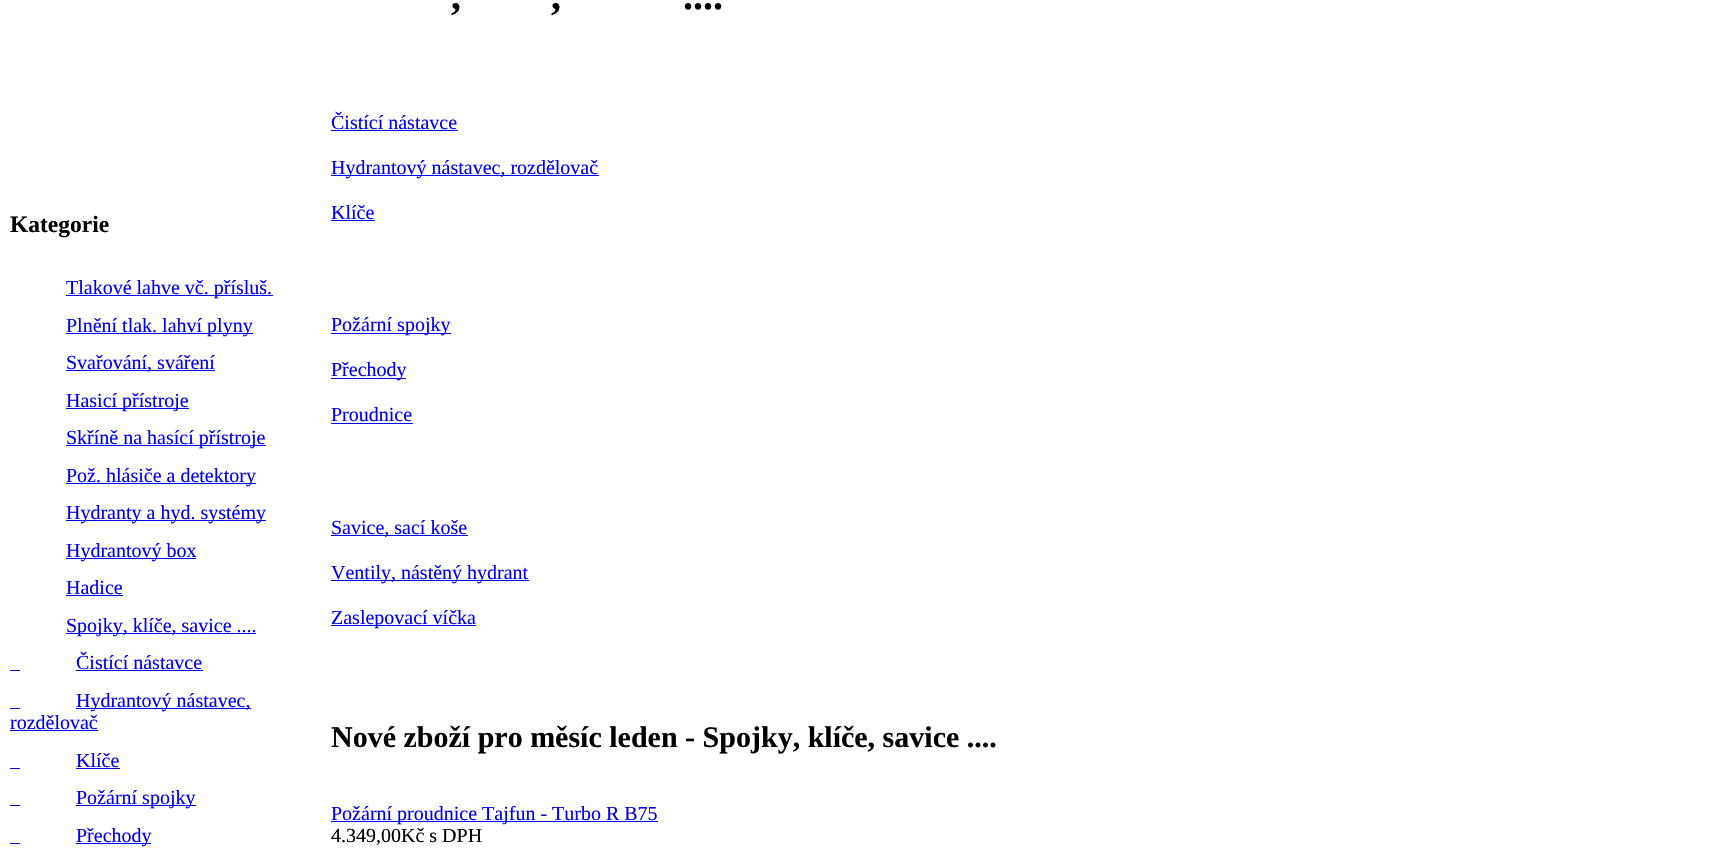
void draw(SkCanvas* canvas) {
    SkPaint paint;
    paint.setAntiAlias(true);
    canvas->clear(0xFFFFFFFF);
    SkFont font1(fontMgr->matchFamilyStyle("Liberation Serif", SkFontStyle::Bold()), 23.5f);
    font1.setSubpixel(true);
    paint.setColor(0xFF000000);
    canvas->drawString("Kategorie", 10, 232, font1, paint);
    paint.setColor(0xFF0000EE);
    canvas->drawRect(SkRect::MakeXYWH(66, 295, 207, 1), paint);
    SkFont font2(fontMgr->matchFamilyStyle("Liberation Serif", SkFontStyle::Normal()), 20);
    font2.setSubpixel(true);
    canvas->drawString("Tlakové lahve vč. přísluš.", 66, 294, font2, paint);
    canvas->drawRect(SkRect::MakeXYWH(66, 333, 187, 1), paint);
    canvas->drawString("Plnění tlak. lahví plyny", 66, 332, font2, paint);
    canvas->drawRect(SkRect::MakeXYWH(66, 370, 149, 1), paint);
    canvas->drawString("Svařování, sváření", 66, 369, font2, paint);
    canvas->drawRect(SkRect::MakeXYWH(66, 408, 123, 1), paint);
    canvas->drawString("Hasicí přístroje", 66, 407, font2, paint);
    canvas->drawRect(SkRect::MakeXYWH(66, 445, 200, 1), paint);
    canvas->drawString("Skříně na hasící přístroje", 66, 444, font2, paint);
    canvas->drawRect(SkRect::MakeXYWH(66, 483, 190, 1), paint);
    canvas->drawString("Pož. hlásiče a detektory", 66, 482, font2, paint);
    canvas->drawRect(SkRect::MakeXYWH(66, 520, 200, 1), paint);
    canvas->drawString("Hydranty a hyd. systémy", 66, 519, font2, paint);
    canvas->drawRect(SkRect::MakeXYWH(66, 558, 130, 1), paint);
    canvas->drawString("Hydrantový box", 66, 557, font2, paint);
    canvas->drawString("Hadice", 66, 594, font2, paint);
    canvas->drawRect(SkRect::MakeXYWH(66, 595, 57, 1), paint);
    canvas->drawRect(SkRect::MakeXYWH(66, 633, 190, 1), paint);
    canvas->drawString("Spojky, klíče, savice ....", 66, 632, font2, paint);
    canvas->drawString("Čistící nástavce", 76, 669, font2, paint);
    canvas->drawRect(SkRect::MakeXYWH(10, 670, 10, 1), paint);
    canvas->drawRect(SkRect::MakeXYWH(76, 670, 127, 1), paint);
    canvas->drawRect(SkRect::MakeXYWH(76, 708, 175, 1), paint);
    canvas->drawString("Hydrantový nástavec,", 76, 707, font2, paint);
    canvas->drawString("rozdělovač", 10, 729, font2, paint);
    canvas->drawRect(SkRect::MakeXYWH(10, 708, 10, 1), paint);
    canvas->drawRect(SkRect::MakeXYWH(10, 730, 88, 1), paint);
    canvas->drawString("Klíče", 76, 767, font2, paint);
    canvas->drawRect(SkRect::MakeXYWH(10, 768, 10, 1), paint);
    canvas->drawRect(SkRect::MakeXYWH(76, 768, 44, 1), paint);
    canvas->drawRect(SkRect::MakeXYWH(76, 805, 120, 1), paint);
    canvas->drawString("Požární spojky", 76, 804, font2, paint);
    canvas->drawRect(SkRect::MakeXYWH(10, 805, 10, 1), paint);
    canvas->drawRect(SkRect::MakeXYWH(76, 843, 75, 1), paint);
    canvas->drawString("Přechody", 76, 842, font2, paint);
    canvas->drawRect(SkRect::MakeXYWH(10, 843, 10, 1), paint);
    SkFont font3(fontMgr->matchFamilyStyle("Liberation Serif", SkFontStyle::Bold()), 40);
    font3.setSubpixel(true);
    paint.setColor(0xFF000000);
    canvas->drawString(",", 451, 9, font3, paint);
    canvas->drawString(",", 551, 9, font3, paint);
    canvas->drawString("....", 683, 9, font3, paint);
    paint.setColor(0xFF0000EE);
    canvas->drawString("Čistící nástavce", 331, 129, font2, paint);
    canvas->drawRect(SkRect::MakeXYWH(331, 130, 127, 1), paint);
    canvas->drawRect(SkRect::MakeXYWH(331, 175, 268, 1), paint);
    canvas->drawString("Hydrantový nástavec, rozdělovač", 331, 174, font2, paint);
    canvas->drawString("Klíče", 331, 219, font2, paint);
    canvas->drawRect(SkRect::MakeXYWH(331, 220, 44, 1), paint);
    canvas->drawRect(SkRect::MakeXYWH(331, 333, 120, 1), paint);
    canvas->drawString("Požární spojky", 331, 331, font2, paint);
    canvas->drawRect(SkRect::MakeXYWH(331, 378, 75, 1), paint);
    canvas->drawString("Přechody", 331, 376, font2, paint);
    canvas->drawString("Proudnice", 331, 421, font2, paint);
    canvas->drawRect(SkRect::MakeXYWH(331, 423, 82, 1), paint);
    canvas->drawRect(SkRect::MakeXYWH(331, 535, 137, 1), paint);
    canvas->drawString("Savice, sací koše", 331, 534, font2, paint);
    canvas->drawRect(SkRect::MakeXYWH(331, 580, 198, 1), paint);
    canvas->drawString("Ventily, nástěný hydrant", 331, 579, font2, paint);
    canvas->drawRect(SkRect::MakeXYWH(331, 625, 145, 1), paint);
    canvas->drawString("Zaslepovací víčka", 331, 624, font2, paint);
    SkFont font4(fontMgr->matchFamilyStyle("Liberation Serif", SkFontStyle::Bold()), 30);
    font4.setSubpixel(true);
    paint.setColor(0xFF000000);
    canvas->drawString("Nové zboží pro měsíc leden - Spojky, klíče, savice ....", 331, 747, font4, paint);
    paint.setColor(0xFF0000EE);
    canvas->drawRect(SkRect::MakeXYWH(331, 821, 327, 1), paint);
    canvas->drawString("Požární proudnice Tajfun - Turbo R B75", 331, 820, font2, paint);
    paint.setColor(0xFF000000);
    canvas->drawString("4.349,00Kč s DPH", 331, 842, font2, paint);
}
